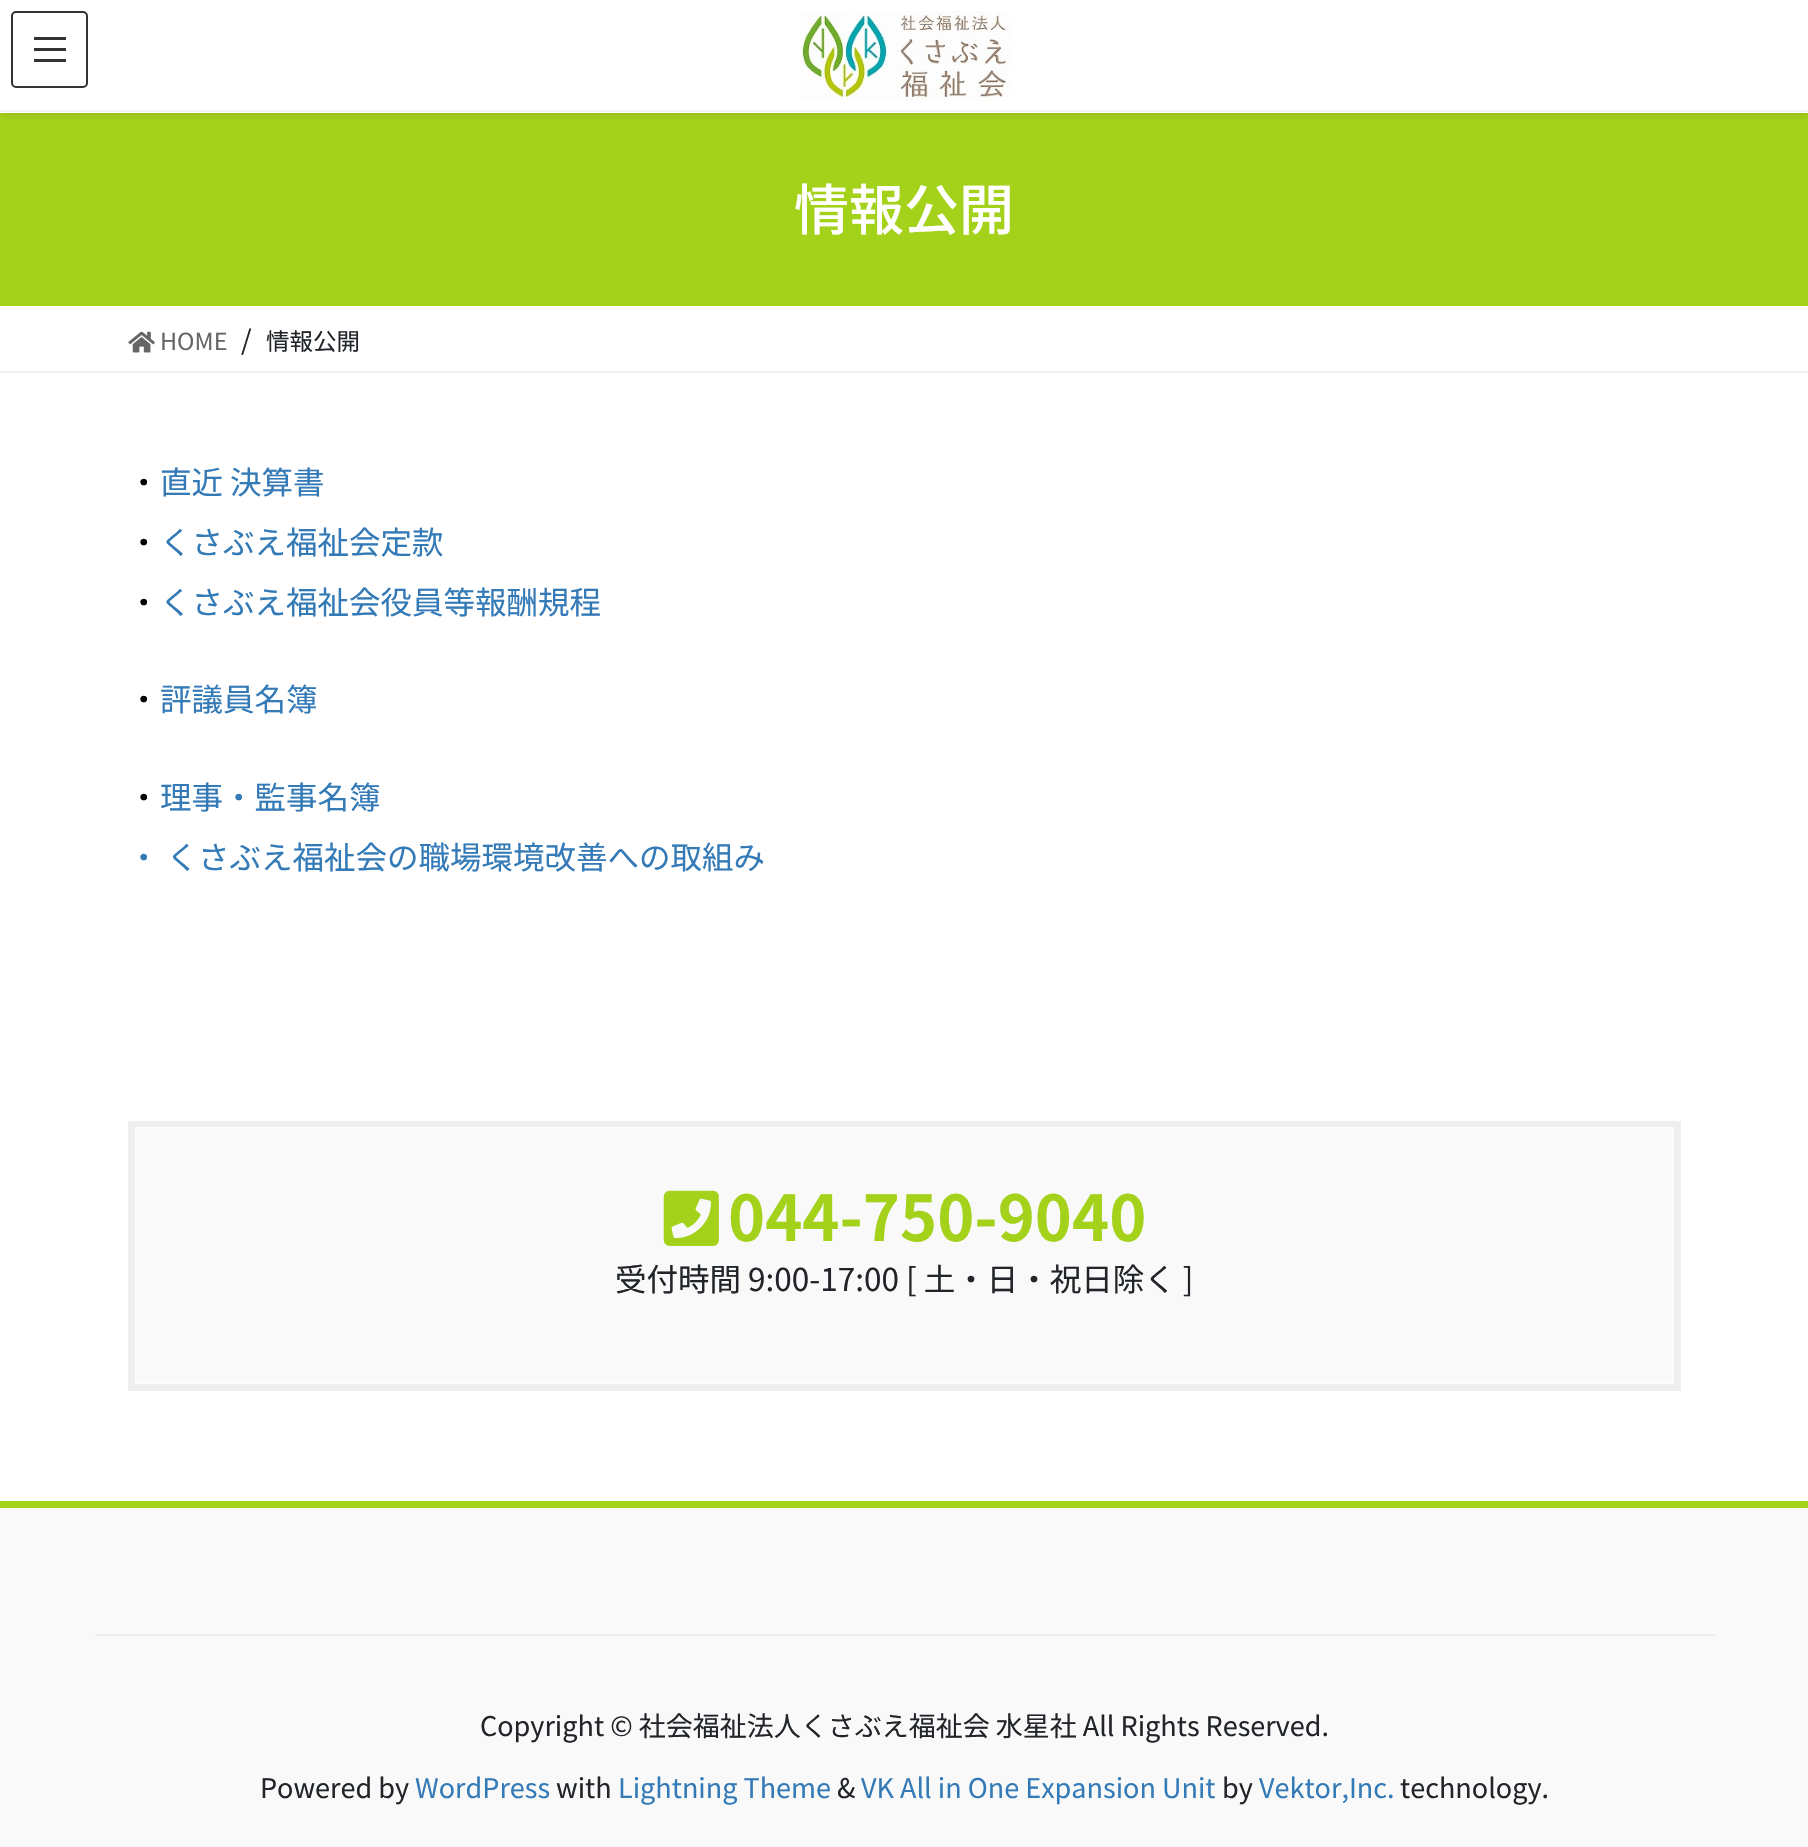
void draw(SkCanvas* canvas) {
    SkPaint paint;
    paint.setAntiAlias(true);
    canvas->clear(0xFFFFFFFF);
    paint.setColor(0xFFA4D119);
    canvas->drawRect(SkRect::MakeXYWH(0, 113, 1808, 193), paint);
    paint.setColor(0x1A000000);
    paint.setMaskFilter(SkMaskFilter::MakeBlur(kNormal_SkBlurStyle, 3.5f));
    canvas->drawRect(SkRect::MakeXYWH(0, 2, 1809, 113), paint);
    paint.setMaskFilter(nullptr);
    paint.setColor(0xFFFFFFFF);
    canvas->drawRect(SkRect::MakeXYWH(0, 0, 1808, 113), paint);
    paint.setColor(0xFFF2F2F2);
    canvas->drawRect(SkRect::MakeXYWH(0, 110, 1808, 2), paint);
    canvas->drawImageRect(SkImages::DeferredFromEncodedData(SkData::MakeFromFileName("img1.png")), SkRect::MakeXYWH(799, 11, 211, 90), SkSamplingOptions());
    paint.setColor(0xFF333333);
    canvas->drawRect(SkRect::MakeXYWH(34, 37, 32, 3), paint);
    canvas->drawRect(SkRect::MakeXYWH(34, 48, 32, 3), paint);
    canvas->drawRect(SkRect::MakeXYWH(34, 59, 32, 3), paint);
    paint.setStyle(SkPaint::kStroke_Style);
    paint.setStrokeWidth(2);
    canvas->drawRoundRect(SkRect::MakeXYWH(12, 12, 75, 75), 4, 4, paint);
    SkFont font1(fontMgr->matchFamilyStyle("Noto Sans JP", SkFontStyle(500, SkFontStyle::kNormal_Width, SkFontStyle::kUpright_Slant)), 55);
    font1.setSubpixel(true);
    paint.setStyle(SkPaint::kFill_Style);
    paint.setColor(0xFFFFFFFF);
    canvas->drawString("情報公開", 794, 230, font1, paint);
    paint.setColor(0xFFF2F2F2);
    canvas->drawRect(SkRect::MakeXYWH(0, 371, 1808, 2), paint);
    canvas->drawImageRect(SkImages::DeferredFromEncodedData(SkData::MakeFromFileName("img2.png")), SkRect::MakeXYWH(128, 331, 27, 22), SkSamplingOptions());
    SkFont font2(fontMgr->matchFamilyStyle("Noto Sans JP", SkFontStyle::Normal()), 23.5f);
    font2.setSubpixel(true);
    paint.setColor(0xFF666666);
    canvas->drawString("HOME", 160, 350, font2, paint);
    SkFont font3(fontMgr->matchFamilyStyle("Noto Sans JP", SkFontStyle::Normal()), 27);
    font3.setSubpixel(true);
    paint.setColor(0xFF212529);
    canvas->drawString("/", 241, 350, font3, paint);
    canvas->drawString("情報公開", 266, 350, font2, paint);
    SkFont font4(fontMgr->matchFamilyStyle("Noto Sans JP", SkFontStyle::Normal()), 31.5f);
    font4.setSubpixel(true);
    paint.setColor(0xFF000000);
    canvas->drawString("・", 128, 494, font4, paint);
    paint.setColor(0xFF337AB7);
    canvas->drawString("直近 決算書", 160, 494, font4, paint);
    paint.setColor(0xFF000000);
    canvas->drawString("・", 128, 554, font4, paint);
    paint.setColor(0xFF337AB7);
    canvas->drawString("くさぶえ福祉会定款", 160, 554, font4, paint);
    paint.setColor(0xFF000000);
    canvas->drawString("・", 128, 614, font4, paint);
    paint.setColor(0xFF337AB7);
    canvas->drawString("くさぶえ福祉会役員等報酬規程", 160, 614, font4, paint);
    paint.setColor(0xFF000000);
    canvas->drawString("・", 128, 711, font4, paint);
    paint.setColor(0xFF337AB7);
    canvas->drawString("評議員名簿", 160, 711, font4, paint);
    paint.setColor(0xFF000000);
    canvas->drawString("・", 128, 809, font4, paint);
    paint.setColor(0xFF337AB7);
    canvas->drawString("理事・監事名簿", 160, 809, font4, paint);
    canvas->drawString("・ くさぶえ福祉会の職場環境改善への取組み", 128, 869, font4, paint);
    paint.setStyle(SkPaint::kStroke_Style);
    paint.setStrokeWidth(7);
    paint.setColor(0xFFEFEFEF);
    canvas->drawRect(SkRect::MakeXYWH(131.5f, 1124.5f, 1546, 263), paint);
    paint.setStyle(SkPaint::kFill_Style);
    paint.setColor(0xFFF9F9F9);
    canvas->drawRect(SkRect::MakeXYWH(136, 1128, 1537, 255), paint);
    paint.setStyle(SkPaint::kStroke_Style);
    paint.setStrokeWidth(2);
    paint.setColor(0xFFFCFCFC);
    canvas->drawRect(SkRect::MakeXYWH(136, 1128, 1537, 255), paint);
    canvas->drawImageRect(SkImages::DeferredFromEncodedData(SkData::MakeFromFileName("img3.png")), SkRect::MakeXYWH(663, 1190, 56, 56), SkSamplingOptions());
    SkFont font5(fontMgr->matchFamilyStyle("Noto Sans JP", SkFontStyle::Bold()), 63);
    font5.setSubpixel(true);
    paint.setStyle(SkPaint::kFill_Style);
    paint.setColor(0xFFA4D119);
    canvas->drawString("044-750-9040", 728, 1241, font5, paint);
    paint.setColor(0xFF212529);
    canvas->drawString("受付時間 9:00-17:00 [ 土・日・祝日除く ]", 615, 1291, font4, paint);
    paint.setColor(0xFFF9F9F9);
    canvas->drawRect(SkRect::MakeXYWH(0, 1508, 1808, 339), paint);
    paint.setColor(0xFFA4D119);
    canvas->drawRect(SkRect::MakeXYWH(0, 1501, 1808, 7), paint);
    paint.setColor(0xFFEDEDED);
    canvas->drawRect(SkRect::MakeXYWH(95, 1634, 1620, 2), paint);
    paint.setColor(0xFF212529);
    canvas->drawString("Copyright © 社会福祉法人くさぶえ福祉会 水星社 All Rights Reserved.", 480, 1736, font3, paint);
    canvas->drawString("Powered by", 260, 1798, font3, paint);
    paint.setColor(0xFF337AB7);
    canvas->drawString("WordPress", 415, 1798, font3, paint);
    paint.setColor(0xFF212529);
    canvas->drawString("with", 556, 1798, font3, paint);
    paint.setColor(0xFF337AB7);
    canvas->drawString("Lightning Theme", 618, 1798, font3, paint);
    paint.setColor(0xFF212529);
    canvas->drawString("&", 837, 1798, font3, paint);
    paint.setColor(0xFF337AB7);
    canvas->drawString("VK All in One Expansion Unit", 861, 1798, font3, paint);
    paint.setColor(0xFF212529);
    canvas->drawString("by", 1222, 1798, font3, paint);
    paint.setColor(0xFF337AB7);
    canvas->drawString("Vektor,Inc.", 1259, 1798, font3, paint);
    paint.setColor(0xFF212529);
    canvas->drawString("technology.", 1400, 1798, font3, paint);
}
